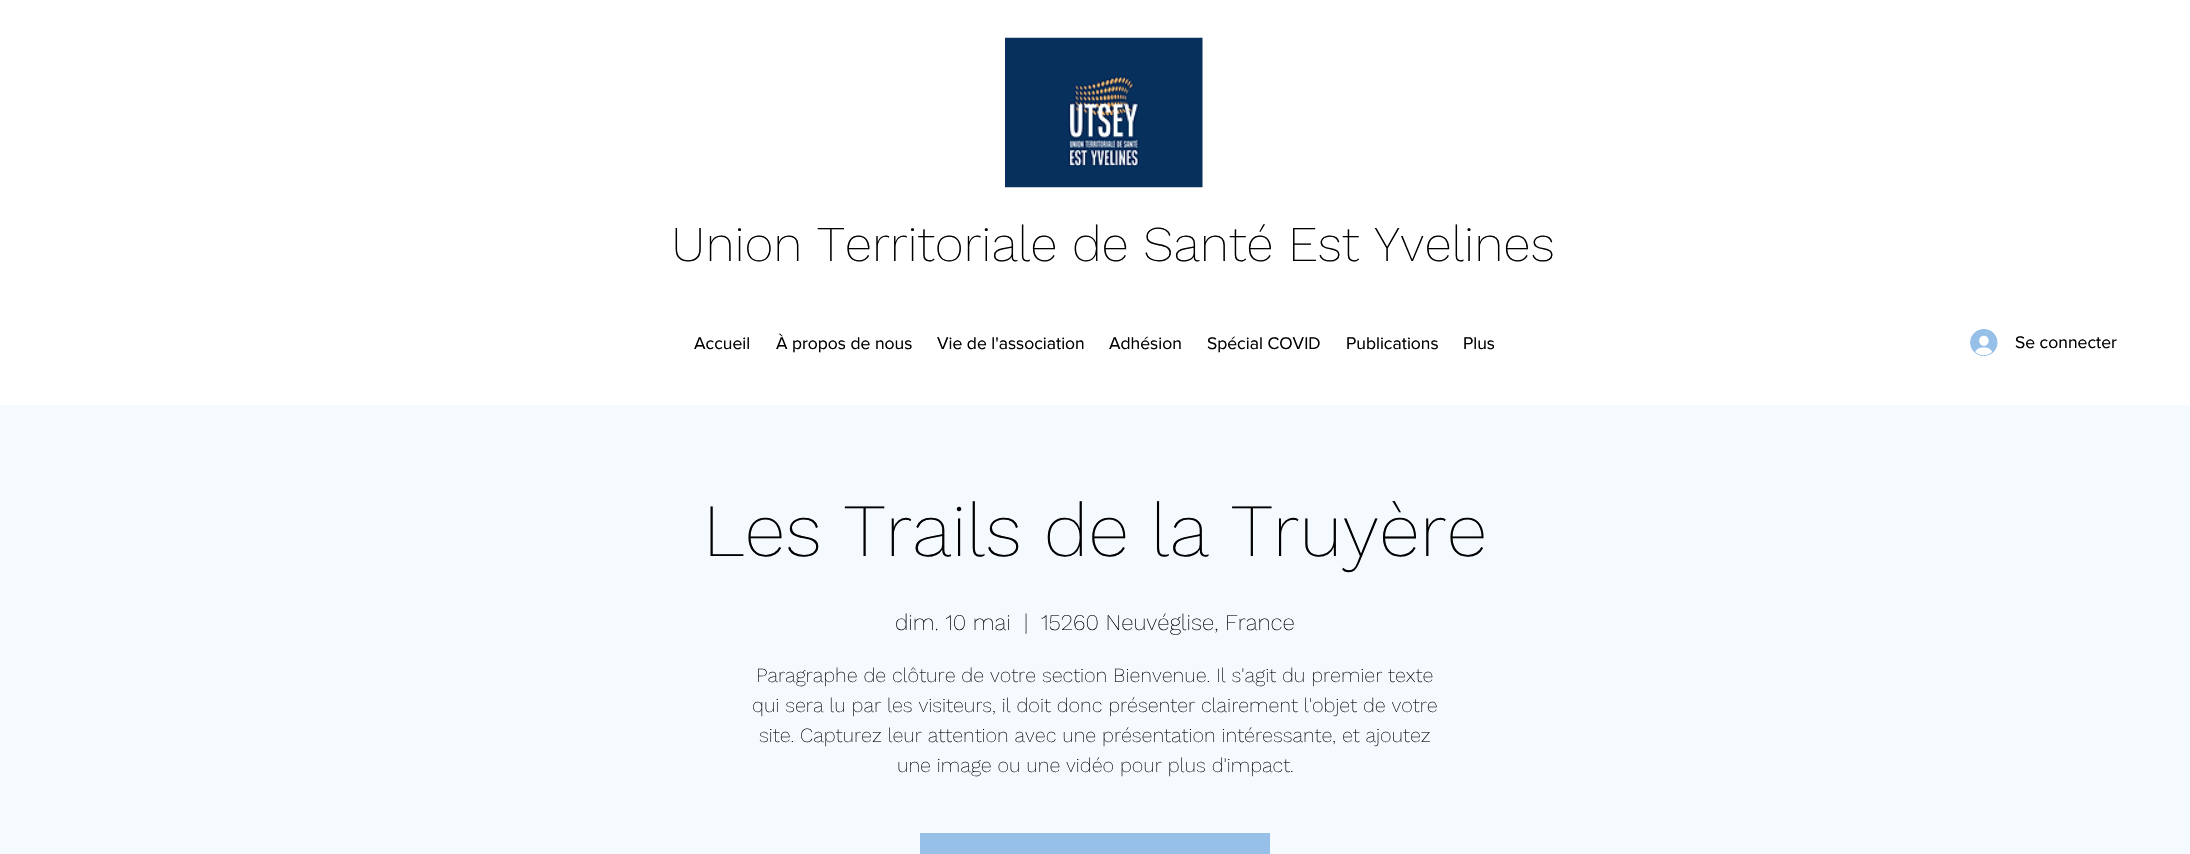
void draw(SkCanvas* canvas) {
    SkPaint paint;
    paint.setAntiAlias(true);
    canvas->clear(0xFFFFFFFF);
    canvas->drawImageRect(SkImages::DeferredFromEncodedData(SkData::MakeFromFileName("img1.png")), SkRect::MakeXYWH(1005, 37, 198, 151), SkSamplingOptions());
    SkFont font1(fontMgr->matchFamilyStyle("Work Sans", SkFontStyle(200, SkFontStyle::kNormal_Width, SkFontStyle::kUpright_Slant)), 50);
    font1.setSubpixel(true);
    paint.setColor(0xFF000000);
    canvas->drawString("Union Territoriale de Santé Est Yvelines", 671, 261, font1, paint);
    SkFont font2(fontMgr->matchFamilyStyle("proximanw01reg", SkFontStyle::Normal()), 17.5f);
    font2.setSubpixel(true);
    canvas->drawString("Accueil", 694, 349, font2, paint);
    canvas->drawString("À propos de nous", 776, 349, font2, paint);
    canvas->drawString("Vie de l'association", 937, 349, font2, paint);
    canvas->drawString("Adhésion", 1109, 349, font2, paint);
    canvas->drawString("Spécial COVID", 1207, 349, font2, paint);
    canvas->drawString("Publications", 1346, 349, font2, paint);
    canvas->drawString("Plus", 1463, 349, font2, paint);
    canvas->drawImageRect(SkImages::DeferredFromEncodedData(SkData::MakeFromFileName("img2.png")), SkRect::MakeXYWH(1970, 329, 28, 27), SkSamplingOptions());
    canvas->drawString("Se connecter", 2015, 348, font2, paint);
    paint.setColor(0xFFF5FAFE);
    canvas->drawRect(SkRect::MakeXYWH(0, 405, 2190, 449), paint);
    SkFont font3(fontMgr->matchFamilyStyle("Work Sans", SkFontStyle(200, SkFontStyle::kNormal_Width, SkFontStyle::kUpright_Slant)), 75);
    font3.setSubpixel(true);
    paint.setColor(0xFF000000);
    canvas->drawString("Les Trails de la Truyère", 703, 556, font3, paint);
    SkFont font4(fontMgr->matchFamilyStyle("Work Sans", SkFontStyle(200, SkFontStyle::kNormal_Width, SkFontStyle::kUpright_Slant)), 22.5f);
    font4.setSubpixel(true);
    canvas->drawString("dim. 10 mai", 895, 630, font4, paint);
    canvas->drawString("|", 1024, 630, font4, paint);
    canvas->drawString("15260 Neuvéglise, France", 1041, 630, font4, paint);
    SkFont font5(fontMgr->matchFamilyStyle("Work Sans", SkFontStyle(200, SkFontStyle::kNormal_Width, SkFontStyle::kUpright_Slant)), 20);
    font5.setSubpixel(true);
    canvas->drawString("Paragraphe de clôture de votre section Bienvenue. Il s'agit du premier texte", 756, 682, font5, paint);
    canvas->drawString("qui sera lu par les visiteurs, il doit donc présenter clairement l'objet de votre", 752, 712, font5, paint);
    canvas->drawString("site. Capturez leur attention avec une présentation intéressante, et ajoutez", 759, 742, font5, paint);
    canvas->drawString("une image ou une vidéo pour plus d'impact.", 897, 772, font5, paint);
    paint.setColor(0xFF97C0E8);
    canvas->drawRect(SkRect::MakeXYWH(920, 833, 350, 21), paint);
}
